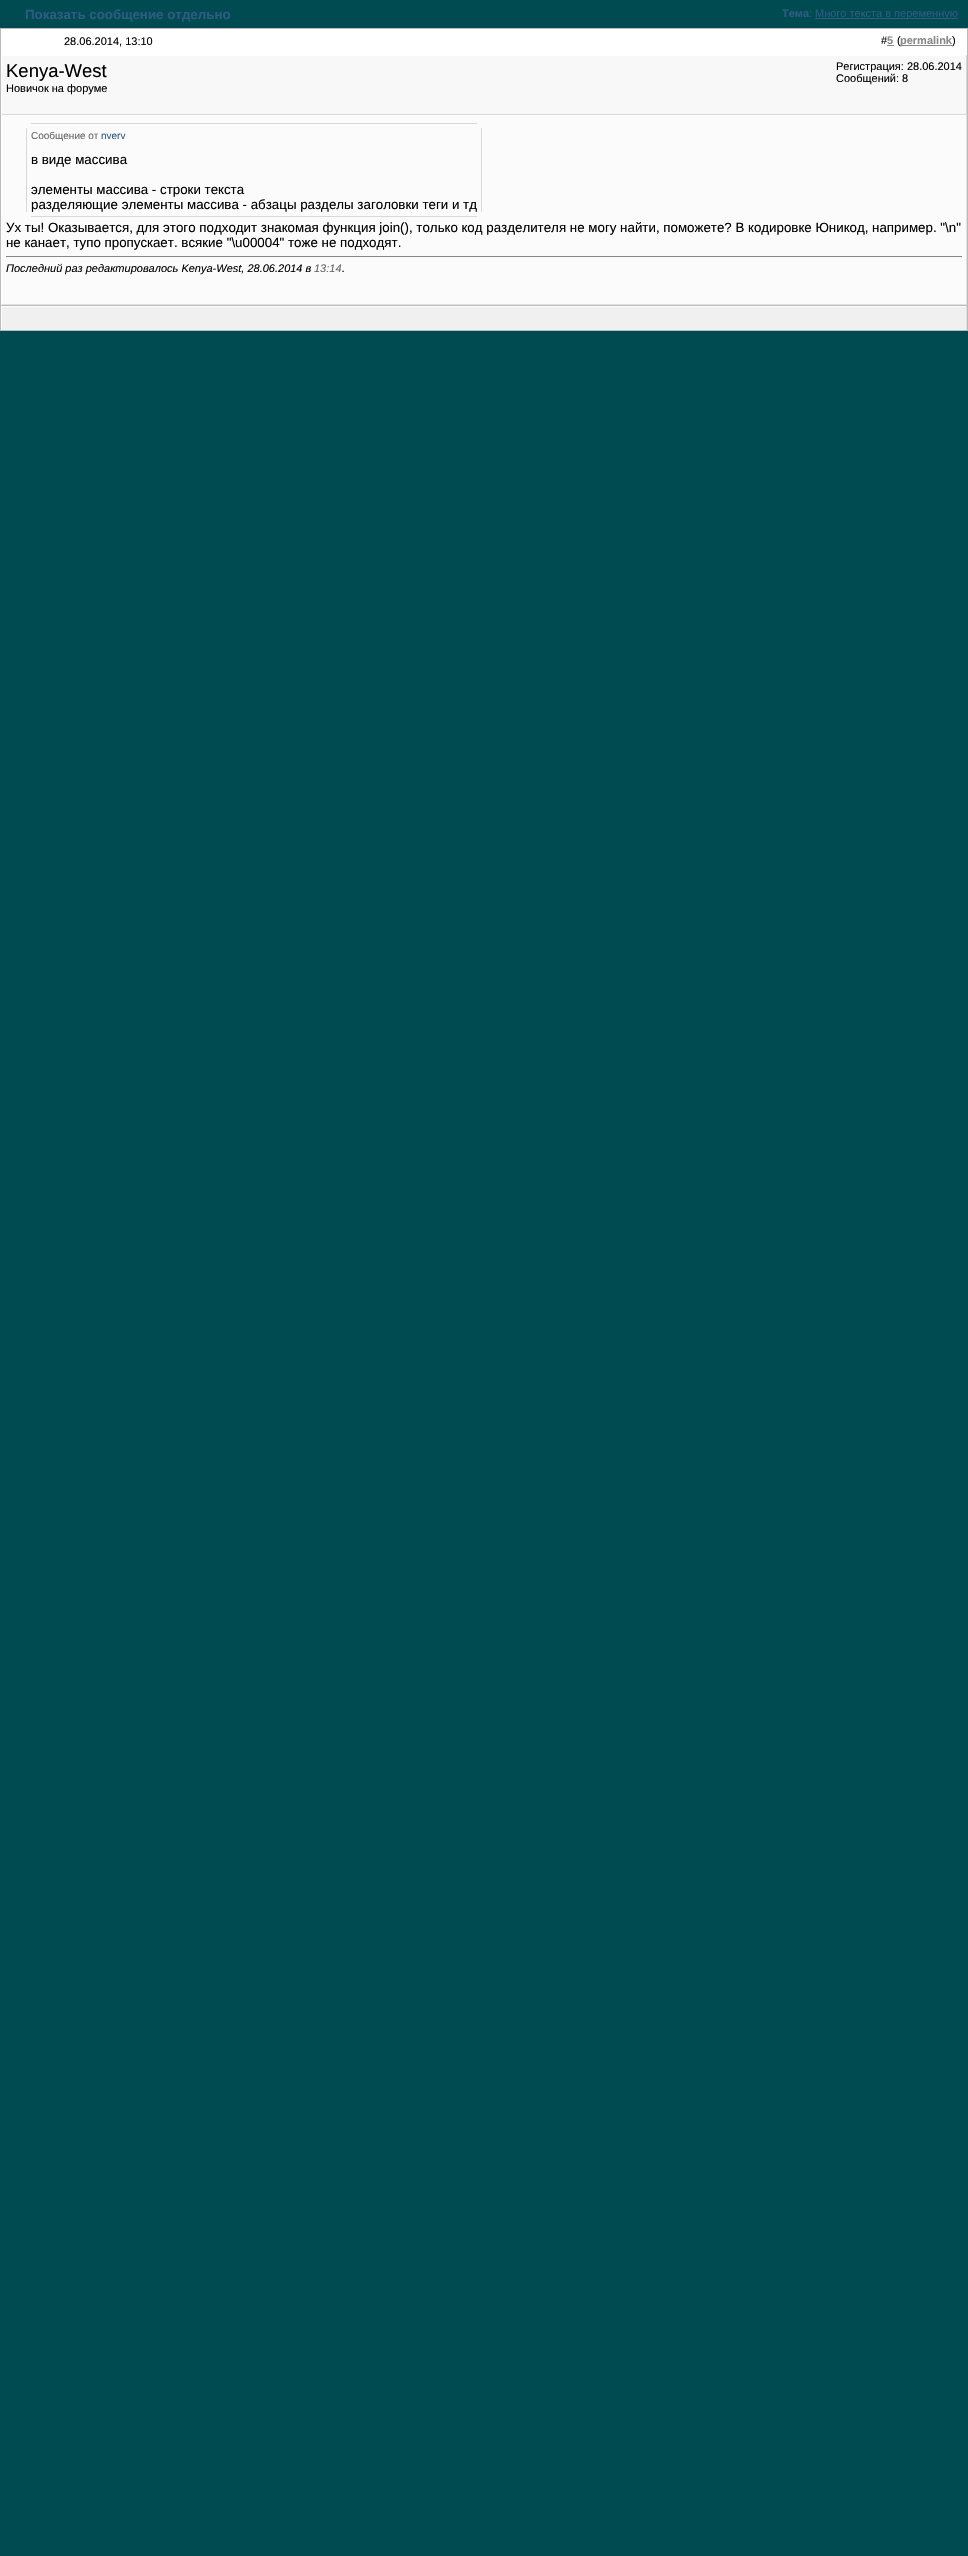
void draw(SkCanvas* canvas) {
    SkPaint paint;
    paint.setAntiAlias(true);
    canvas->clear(0xFF004B52);
    SkFont font1(fontMgr->matchFamilyStyle("Liberation Sans", SkFontStyle::Bold()), 13.33f);
    font1.setSubpixel(true);
    paint.setColor(0xFF2E5B82);
    canvas->drawString("Показать сообщение отдельно", 25, 19, font1, paint);
    SkFont font2(fontMgr->matchFamilyStyle("Liberation Sans", SkFontStyle::Bold()), 11);
    font2.setSubpixel(true);
    canvas->drawString("Тема", 782, 17, font2, paint);
    SkFont font3(fontMgr->matchFamilyStyle("Liberation Sans", SkFontStyle::Normal()), 11);
    font3.setSubpixel(true);
    canvas->drawString(":", 809, 17, font3, paint);
    canvas->drawRect(SkRect::MakeXYWH(815, 18, 143, 1), paint);
    canvas->drawString("Много текста в переменную", 815, 17, font3, paint);
    paint.setStyle(SkPaint::kStroke_Style);
    paint.setStrokeWidth(1);
    paint.setColor(0xFFBBBBBB);
    canvas->drawRect(SkRect::MakeXYWH(0.5f, 28.5f, 967, 277), paint);
    paint.setStyle(SkPaint::kFill_Style);
    paint.setColor(0xFFFFFFFF);
    canvas->drawRect(SkRect::MakeXYWH(1, 29, 966, 27), paint);
    paint.setColor(0xFF000000);
    canvas->drawString("28.06.2014, 13:10", 64, 45, font3, paint);
    canvas->drawString("#", 881, 44, font3, paint);
    paint.setColor(0xFF888888);
    canvas->drawString("5", 887, 44, font2, paint);
    canvas->drawRect(SkRect::MakeXYWH(887, 45, 7, 1), paint);
    paint.setColor(0xFF000000);
    canvas->drawString("(", 897, 44, font3, paint);
    paint.setColor(0xFF888888);
    canvas->drawRect(SkRect::MakeXYWH(900, 45, 52, 1), paint);
    canvas->drawString("permalink", 900, 44, font2, paint);
    paint.setColor(0xFF000000);
    canvas->drawString(")", 952, 44, font3, paint);
    paint.setColor(0xFFF8F8F8);
    canvas->drawRect(SkRect::MakeXYWH(2, 56, 964, 58), paint);
    paint.setColor(0xFFD7D7D7);
    canvas->drawRect(SkRect::MakeXYWH(966, 55, 1, 60), paint);
    canvas->drawRect(SkRect::MakeXYWH(1, 114, 966, 1), paint);
    paint.setColor(0xFFFFFFFF);
    canvas->drawRect(SkRect::MakeXYWH(1, 55, 1, 60), paint);
    SkFont font4(fontMgr->matchFamilyStyle("Liberation Sans", SkFontStyle::Normal()), 18.5f);
    font4.setSubpixel(true);
    paint.setColor(0xFF000000);
    canvas->drawString("Kenya-West", 6, 77, font4, paint);
    canvas->drawString("Новичок на форуме", 6, 92, font3, paint);
    canvas->drawString("Регистрация: 28.06.2014", 836, 70, font3, paint);
    canvas->drawString("Сообщений: 8", 836, 82, font3, paint);
    paint.setColor(0xFFFBFBFB);
    canvas->drawRect(SkRect::MakeXYWH(2, 116, 964, 188), paint);
    paint.setColor(0xFFFFFFFF);
    canvas->drawRect(SkRect::MakeXYWH(1, 115, 966, 1), paint);
    paint.setColor(0xFFE0E0E0);
    canvas->drawRect(SkRect::MakeXYWH(966, 115, 1, 190), paint);
    canvas->drawRect(SkRect::MakeXYWH(1, 304, 966, 1), paint);
    paint.setColor(0xFFFFFFFF);
    canvas->drawRect(SkRect::MakeXYWH(1, 115, 1, 190), paint);
    paint.setColor(0xFFD8D8D8);
    canvas->drawRect(SkRect::MakeXYWH(31, 123, 446, 1), paint);
    canvas->drawRect(SkRect::MakeXYWH(481, 128, 1, 84), paint);
    canvas->drawRect(SkRect::MakeXYWH(26, 128, 1, 84), paint);
    SkFont font5(fontMgr->matchFamilyStyle("Liberation Sans", SkFontStyle::Normal()), 10);
    font5.setSubpixel(true);
    paint.setColor(0xFF666666);
    canvas->drawString("Сообщение от", 31, 139, font5, paint);
    paint.setColor(0xFF2E5B82);
    canvas->drawString("nverv", 101, 139, font5, paint);
    SkFont font6(fontMgr->matchFamilyStyle("Liberation Sans", SkFontStyle::Normal()), 13.33f);
    font6.setSubpixel(true);
    paint.setColor(0xFF000000);
    canvas->drawString("в виде массива", 31, 164, font6, paint);
    canvas->drawString("элементы массива - строки текста", 31, 194, font6, paint);
    canvas->drawString("разделяющие элементы массива - абзацы разделы заголовки теги и тд", 31, 209, font6, paint);
    paint.setColor(0xFFD8D8D8);
    canvas->drawRect(SkRect::MakeXYWH(31, 216, 446, 1), paint);
    paint.setColor(0xFF000000);
    canvas->drawString("Ух ты! Оказывается, для этого подходит знакомая функция join(), только код разделителя не могу найти, поможете? В кодировке Юникод, например. \"\\n\"", 6, 232, font6, paint);
    canvas->drawString("не канает, тупо пропускает. всякие \"\\u00004\" тоже не подходят.", 6, 247, font6, paint);
    paint.setColor(0xFF888888);
    canvas->drawRect(SkRect::MakeXYWH(6, 256, 956, 1), paint);
    SkFont font7(fontMgr->matchFamilyStyle("Liberation Sans", SkFontStyle::Italic()), 11);
    font7.setSubpixel(true);
    paint.setColor(0xFF000000);
    canvas->drawString("Последний раз редактировалось Kenya-West, 28.06.2014 в", 6, 272, font7, paint);
    paint.setColor(0xFF666666);
    canvas->drawString("13:14", 314, 272, font7, paint);
    paint.setColor(0xFF000000);
    canvas->drawString(".", 342, 272, font7, paint);
    paint.setColor(0xFFBBBBBB);
    canvas->drawRect(SkRect::MakeXYWH(967, 306, 1, 25), paint);
    canvas->drawRect(SkRect::MakeXYWH(0, 330, 968, 1), paint);
    canvas->drawRect(SkRect::MakeXYWH(0, 306, 1, 25), paint);
    paint.setColor(0xFFF0F0F0);
    canvas->drawRect(SkRect::MakeXYWH(2, 307, 964, 23), paint);
    paint.setColor(0xFFFFFFFF);
    canvas->drawRect(SkRect::MakeXYWH(1, 306, 966, 1), paint);
    paint.setColor(0xFFE0E0E0);
    canvas->drawRect(SkRect::MakeXYWH(966, 306, 1, 24), paint);
    paint.setColor(0xFFFFFFFF);
    canvas->drawRect(SkRect::MakeXYWH(1, 306, 1, 24), paint);
}
